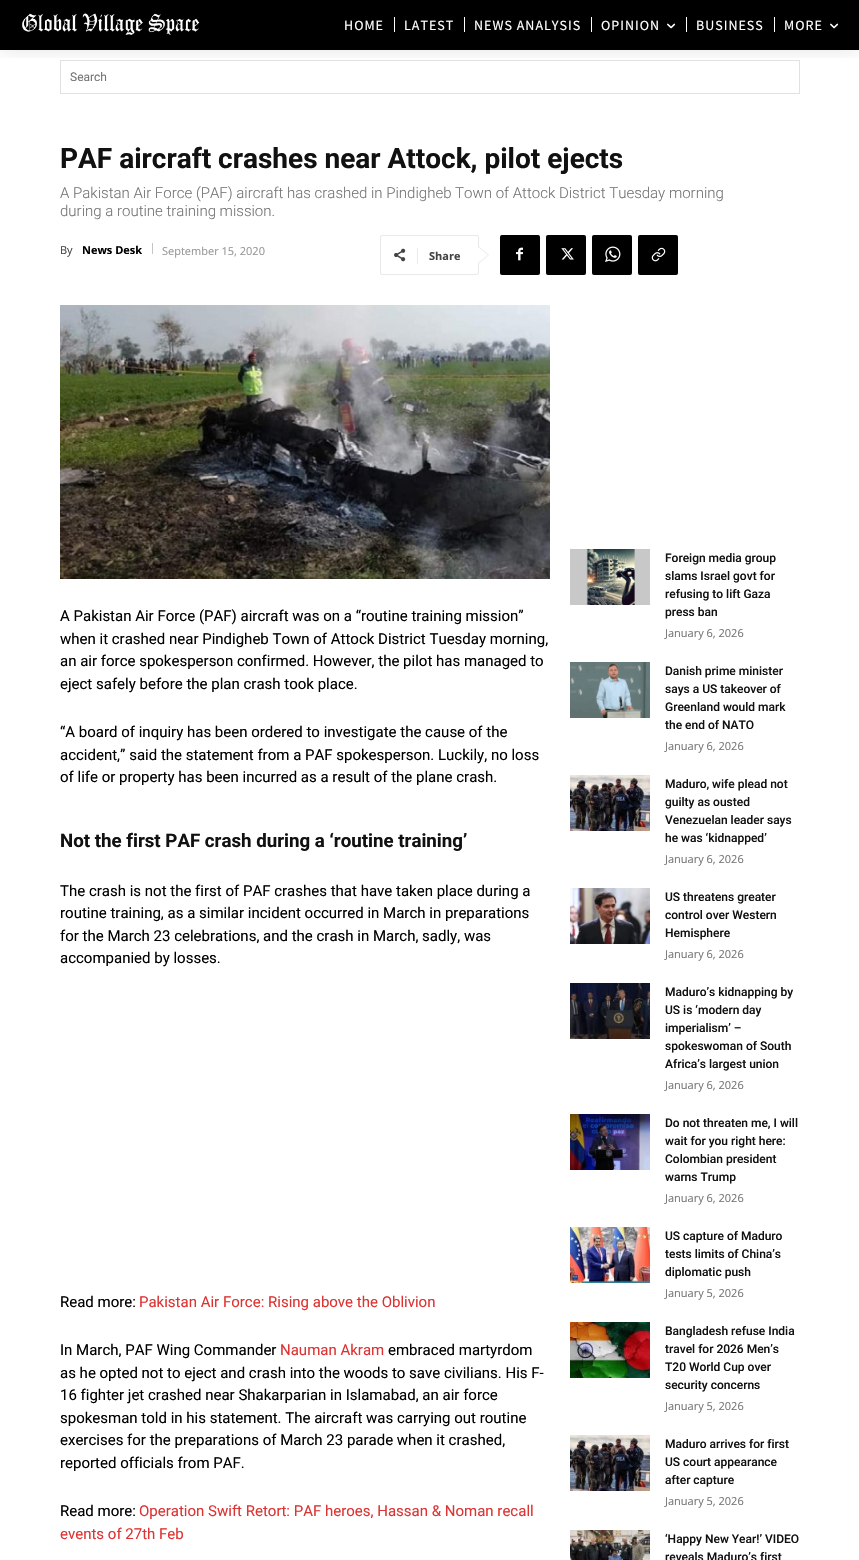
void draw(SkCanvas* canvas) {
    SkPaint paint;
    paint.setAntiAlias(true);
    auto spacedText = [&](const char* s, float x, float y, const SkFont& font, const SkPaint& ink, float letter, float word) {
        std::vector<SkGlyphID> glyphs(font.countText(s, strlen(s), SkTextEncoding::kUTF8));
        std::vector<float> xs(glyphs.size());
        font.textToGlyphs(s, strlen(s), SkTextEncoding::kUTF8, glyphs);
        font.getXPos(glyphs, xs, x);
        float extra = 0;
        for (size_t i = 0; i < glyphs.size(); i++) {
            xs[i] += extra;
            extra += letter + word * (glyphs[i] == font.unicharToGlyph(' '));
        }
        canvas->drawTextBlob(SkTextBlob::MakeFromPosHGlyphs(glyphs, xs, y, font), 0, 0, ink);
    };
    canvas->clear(0xFFFFFFFF);
    paint.setColor(0xFF000000);
    canvas->drawRect(SkRect::MakeXYWH(0, 0, 859, 50), paint);
    paint.setStyle(SkPaint::kStroke_Style);
    paint.setStrokeWidth(1);
    paint.setColor(0xFFE1E1E1);
    canvas->drawRect(SkRect::MakeXYWH(60.5f, 60.5f, 739, 33), paint);
    canvas->save();
    canvas->clipRect(SkRect::MakeXYWH(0, 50, 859, 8));
    paint.setStyle(SkPaint::kFill_Style);
    paint.setColor(0x1A000000);
    paint.setMaskFilter(SkMaskFilter::MakeBlur(kNormal_SkBlurStyle, 10));
    canvas->drawRect(SkRect::MakeXYWH(0, 0, 859, 50), paint);
    paint.setMaskFilter(nullptr);
    canvas->restore();
    canvas->drawImageRect(SkImages::DeferredFromEncodedData(SkData::MakeFromFileName("img1.png")), SkRect::MakeXYWH(22, 13, 178, 22), SkSamplingOptions());
    SkFont font1(fontMgr->matchFamilyStyle("Source Sans Pro", SkFontStyle::Normal()), 14);
    font1.setSubpixel(true);
    paint.setColor(0xFFFFFFFF);
    spacedText("HOME", 344, 30, font1, paint, 1, 0);
    canvas->drawRect(SkRect::MakeXYWH(394, 17, 1, 15), paint);
    spacedText("LATEST", 404, 30, font1, paint, 1, 0);
    canvas->drawRect(SkRect::MakeXYWH(464, 17, 1, 15), paint);
    spacedText("NEWS ANALYSIS", 474, 30, font1, paint, 1, 0);
    canvas->drawRect(SkRect::MakeXYWH(591, 17, 1, 15), paint);
    spacedText("OPINION", 601, 30, font1, paint, 1, 0);
    canvas->drawImageRect(SkImages::DeferredFromEncodedData(SkData::MakeFromFileName("img2.png")), SkRect::MakeXYWH(667, 23, 9, 6), SkSamplingOptions());
    canvas->drawRect(SkRect::MakeXYWH(686, 17, 1, 15), paint);
    spacedText("BUSINESS", 696, 30, font1, paint, 1, 0);
    canvas->drawRect(SkRect::MakeXYWH(774, 17, 1, 15), paint);
    spacedText("MORE", 784, 30, font1, paint, 1, 0);
    canvas->drawImageRect(SkImages::DeferredFromEncodedData(SkData::MakeFromFileName("img2.png")), SkRect::MakeXYWH(830, 23, 9, 6), SkSamplingOptions());
    SkFont font2(fontMgr->matchFamilyStyle("Roboto", SkFontStyle::Normal()), 12);
    font2.setSubpixel(true);
    paint.setColor(0xFF757575);
    canvas->drawString("Search", 70, 81, font2, paint);
    SkFont font3(fontMgr->matchFamilyStyle("Roboto", SkFontStyle::Bold()), 28);
    font3.setSubpixel(true);
    paint.setColor(0xFF111111);
    canvas->drawString("PAF aircraft crashes near Attock, pilot ejects", 60, 168, font3, paint);
    SkFont font4(fontMgr->matchFamilyStyle("Roboto", SkFontStyle(300, SkFontStyle::kNormal_Width, SkFontStyle::kUpright_Slant)), 15);
    font4.setSubpixel(true);
    paint.setColor(0xFF757575);
    canvas->drawString("A Pakistan Air Force (PAF) aircraft has crashed in Pindigheb Town of Attock District Tuesday morning", 60, 198, font4, paint);
    canvas->drawString("during a routine training mission.", 60, 216, font4, paint);
    SkFont font5(fontMgr->matchFamilyStyle("Open Sans", SkFontStyle::Normal()), 11);
    font5.setSubpixel(true);
    paint.setColor(0xFF444444);
    canvas->drawString("By", 60, 254, font5, paint);
    SkFont font6(fontMgr->matchFamilyStyle("Open Sans", SkFontStyle::Bold()), 11);
    font6.setSubpixel(true);
    paint.setColor(0xFF000000);
    canvas->drawString("News Desk", 82, 254, font6, paint);
    paint.setColor(0xFFC4C4C4);
    canvas->drawRect(SkRect::MakeXYWH(152, 243, 1, 11), paint);
    paint.setColor(0xFF969696);
    canvas->drawString("September 15, 2020", 162, 255, font5, paint);
    paint.setStyle(SkPaint::kStroke_Style);
    paint.setColor(0xFFE9E9E9);
    canvas->drawRoundRect(SkRect::MakeXYWH(380.5f, 235.5f, 98, 39), 1.5f, 1.5f, paint);
    paint.setStyle(SkPaint::kFill_Style);
    canvas->drawPath(SkPathBuilder().moveTo(478, 264).lineTo(478, 246).lineTo(489, 255).close().detach(), paint);
    canvas->drawImageRect(SkImages::DeferredFromEncodedData(SkData::MakeFromFileName("img3.png")), SkRect::MakeXYWH(394, 248, 12, 14), SkSamplingOptions());
    paint.setColor(0xFFEBEBEB);
    canvas->drawRect(SkRect::MakeXYWH(417, 248, 1, 16), paint);
    paint.setColor(0xFF444444);
    canvas->drawString("Share", 429, 260, font6, paint);
    paint.setColor(0xFFFFFFFF);
    canvas->drawPath(SkPathBuilder().moveTo(478, 263).lineTo(478, 247).lineTo(488, 255).close().detach(), paint);
    paint.setColor(0xFF000000);
    canvas->drawRoundRect(SkRect::MakeXYWH(500, 235, 40, 40), 2, 2, paint);
    canvas->drawImageRect(SkImages::DeferredFromEncodedData(SkData::MakeFromFileName("img4.png")), SkRect::MakeXYWH(516, 247, 7, 14), SkSamplingOptions());
    canvas->drawRoundRect(SkRect::MakeXYWH(546, 235, 40, 40), 2, 2, paint);
    canvas->drawImageRect(SkImages::DeferredFromEncodedData(SkData::MakeFromFileName("img5.png")), SkRect::MakeXYWH(561, 248, 13, 12), SkSamplingOptions());
    canvas->drawRoundRect(SkRect::MakeXYWH(592, 235, 40, 40), 2, 2, paint);
    canvas->drawImageRect(SkImages::DeferredFromEncodedData(SkData::MakeFromFileName("img6.png")), SkRect::MakeXYWH(605, 246, 16, 16), SkSamplingOptions());
    canvas->drawRoundRect(SkRect::MakeXYWH(638, 235, 40, 40), 2, 2, paint);
    canvas->drawImageRect(SkImages::DeferredFromEncodedData(SkData::MakeFromFileName("img7.png")), SkRect::MakeXYWH(651, 247, 15, 15), SkSamplingOptions());
    canvas->drawImageRect(SkImages::DeferredFromEncodedData(SkData::MakeFromFileName("img8.png")), SkRect::MakeXYWH(60, 305, 490, 274), SkSamplingOptions());
    SkFont font7(fontMgr->matchFamilyStyle("Roboto", SkFontStyle::Normal()), 15);
    font7.setSubpixel(true);
    canvas->drawString("A Pakistan Air Force (PAF) aircraft was on a “routine training mission”", 60, 621, font7, paint);
    canvas->drawString("when it crashed near Pindigheb Town of Attock District Tuesday morning,", 60, 644, font7, paint);
    canvas->drawString("an air force spokesperson confirmed. However, the pilot has managed to", 60, 666, font7, paint);
    canvas->drawString("eject safely before the plan crash took place.", 60, 689, font7, paint);
    canvas->drawString("“A board of inquiry has been ordered to investigate the cause of the", 60, 737, font7, paint);
    canvas->drawString("accident,” said the statement from a PAF spokesperson. Luckily, no loss", 60, 760, font7, paint);
    canvas->drawString("of life or property has been incurred as a result of the plane crash.", 60, 782, font7, paint);
    SkFont font8(fontMgr->matchFamilyStyle("Roboto", SkFontStyle::Bold()), 18.7f);
    font8.setSubpixel(true);
    paint.setColor(0xFF111111);
    canvas->drawString("Not the first PAF crash during a ‘routine training’", 60, 847, font8, paint);
    paint.setColor(0xFF000000);
    canvas->drawString("The crash is not the first of PAF crashes that have taken place during a", 60, 896, font7, paint);
    canvas->drawString("routine training, as a similar incident occurred in March in preparations", 60, 918, font7, paint);
    canvas->drawString("for the March 23 celebrations, and the crash in March, sadly, was", 60, 941, font7, paint);
    canvas->drawString("accompanied by losses.", 60, 963, font7, paint);
    canvas->drawString("Read more:", 60, 1307, font7, paint);
    paint.setColor(0xFFDD3333);
    canvas->drawString("Pakistan Air Force: Rising above the Oblivion", 139, 1307, font7, paint);
    paint.setColor(0xFF000000);
    canvas->drawString("In March, PAF Wing Commander", 60, 1355, font7, paint);
    paint.setColor(0xFFDD3333);
    canvas->drawString("Nauman Akram", 280, 1355, font7, paint);
    paint.setColor(0xFF000000);
    canvas->drawString("embraced martyrdom", 388, 1355, font7, paint);
    canvas->drawString("as he opted not to eject and crash into the woods to save civilians. His F-", 60, 1378, font7, paint);
    canvas->drawString("16 fighter jet crashed near Shakarparian in Islamabad, an air force", 60, 1400, font7, paint);
    canvas->drawString("spokesman told in his statement. The aircraft was carrying out routine", 60, 1423, font7, paint);
    canvas->drawString("exercises for the preparations of March 23 parade when it crashed,", 60, 1445, font7, paint);
    canvas->drawString("reported officials from PAF.", 60, 1468, font7, paint);
    canvas->drawString("Read more:", 60, 1516, font7, paint);
    paint.setColor(0xFFDD3333);
    canvas->drawString("Operation Swift Retort: PAF heroes, Hassan & Noman recall", 139, 1516, font7, paint);
    canvas->drawString("events of 27th Feb", 60, 1539, font7, paint);
    canvas->drawImageRect(SkImages::DeferredFromEncodedData(SkData::MakeFromFileName("img9.png")), SkRect::MakeXYWH(570, 549, 80, 56), SkSamplingOptions());
    SkFont font9(fontMgr->matchFamilyStyle("Roboto", SkFontStyle(500, SkFontStyle::kNormal_Width, SkFontStyle::kUpright_Slant)), 12);
    font9.setSubpixel(true);
    paint.setColor(0xFF111111);
    canvas->drawString("Foreign media group", 665, 562, font9, paint);
    canvas->drawString("slams Israel govt for", 665, 580, font9, paint);
    canvas->drawString("refusing to lift Gaza", 665, 598, font9, paint);
    canvas->drawString("press ban", 665, 616, font9, paint);
    paint.setColor(0xFF757575);
    canvas->drawString("January 6, 2026", 665, 637, font5, paint);
    canvas->drawImageRect(SkImages::DeferredFromEncodedData(SkData::MakeFromFileName("img10.png")), SkRect::MakeXYWH(570, 662, 80, 56), SkSamplingOptions());
    paint.setColor(0xFF111111);
    canvas->drawString("Danish prime minister", 665, 675, font9, paint);
    canvas->drawString("says a US takeover of", 665, 693, font9, paint);
    canvas->drawString("Greenland would mark", 665, 711, font9, paint);
    canvas->drawString("the end of NATO", 665, 729, font9, paint);
    paint.setColor(0xFF757575);
    canvas->drawString("January 6, 2026", 665, 750, font5, paint);
    canvas->drawImageRect(SkImages::DeferredFromEncodedData(SkData::MakeFromFileName("img11.png")), SkRect::MakeXYWH(570, 775, 80, 56), SkSamplingOptions());
    paint.setColor(0xFF111111);
    canvas->drawString("Maduro, wife plead not", 665, 788, font9, paint);
    canvas->drawString("guilty as ousted", 665, 806, font9, paint);
    canvas->drawString("Venezuelan leader says", 665, 824, font9, paint);
    canvas->drawString("he was ‘kidnapped’", 665, 842, font9, paint);
    paint.setColor(0xFF757575);
    canvas->drawString("January 6, 2026", 665, 863, font5, paint);
    canvas->drawImageRect(SkImages::DeferredFromEncodedData(SkData::MakeFromFileName("img12.png")), SkRect::MakeXYWH(570, 888, 80, 56), SkSamplingOptions());
    paint.setColor(0xFF111111);
    canvas->drawString("US threatens greater", 665, 901, font9, paint);
    canvas->drawString("control over Western", 665, 919, font9, paint);
    canvas->drawString("Hemisphere", 665, 937, font9, paint);
    paint.setColor(0xFF757575);
    canvas->drawString("January 6, 2026", 665, 958, font5, paint);
    canvas->drawImageRect(SkImages::DeferredFromEncodedData(SkData::MakeFromFileName("img13.png")), SkRect::MakeXYWH(570, 983, 80, 56), SkSamplingOptions());
    paint.setColor(0xFF111111);
    canvas->drawString("Maduro’s kidnapping by", 665, 996, font9, paint);
    canvas->drawString("US is ‘modern day", 665, 1014, font9, paint);
    canvas->drawString("imperialism’ –", 665, 1032, font9, paint);
    canvas->drawString("spokeswoman of South", 665, 1050, font9, paint);
    canvas->drawString("Africa’s largest union", 665, 1068, font9, paint);
    paint.setColor(0xFF757575);
    canvas->drawString("January 6, 2026", 665, 1089, font5, paint);
    canvas->drawImageRect(SkImages::DeferredFromEncodedData(SkData::MakeFromFileName("img14.png")), SkRect::MakeXYWH(570, 1114, 80, 56), SkSamplingOptions());
    paint.setColor(0xFF111111);
    canvas->drawString("Do not threaten me, I will", 665, 1127, font9, paint);
    canvas->drawString("wait for you right here:", 665, 1145, font9, paint);
    canvas->drawString("Colombian president", 665, 1163, font9, paint);
    canvas->drawString("warns Trump", 665, 1181, font9, paint);
    paint.setColor(0xFF757575);
    canvas->drawString("January 6, 2026", 665, 1202, font5, paint);
    canvas->drawImageRect(SkImages::DeferredFromEncodedData(SkData::MakeFromFileName("img15.png")), SkRect::MakeXYWH(570, 1227, 80, 56), SkSamplingOptions());
    paint.setColor(0xFF111111);
    canvas->drawString("US capture of Maduro", 665, 1240, font9, paint);
    canvas->drawString("tests limits of China’s", 665, 1258, font9, paint);
    canvas->drawString("diplomatic push", 665, 1276, font9, paint);
    paint.setColor(0xFF757575);
    canvas->drawString("January 5, 2026", 665, 1297, font5, paint);
    canvas->drawImageRect(SkImages::DeferredFromEncodedData(SkData::MakeFromFileName("img16.png")), SkRect::MakeXYWH(570, 1322, 80, 56), SkSamplingOptions());
    paint.setColor(0xFF111111);
    canvas->drawString("Bangladesh refuse India", 665, 1335, font9, paint);
    canvas->drawString("travel for 2026 Men’s", 665, 1353, font9, paint);
    canvas->drawString("T20 World Cup over", 665, 1371, font9, paint);
    canvas->drawString("security concerns", 665, 1389, font9, paint);
    paint.setColor(0xFF757575);
    canvas->drawString("January 5, 2026", 665, 1410, font5, paint);
    canvas->drawImageRect(SkImages::DeferredFromEncodedData(SkData::MakeFromFileName("img11.png")), SkRect::MakeXYWH(570, 1435, 80, 56), SkSamplingOptions());
    paint.setColor(0xFF111111);
    canvas->drawString("Maduro arrives for first", 665, 1448, font9, paint);
    canvas->drawString("US court appearance", 665, 1466, font9, paint);
    canvas->drawString("after capture", 665, 1484, font9, paint);
    paint.setColor(0xFF757575);
    canvas->drawString("January 5, 2026", 665, 1505, font5, paint);
    canvas->drawImageRect(SkImages::DeferredFromEncodedData(SkData::MakeFromFileName("img17.png")), SkRect::MakeXYWH(570, 1530, 80, 30), SkSamplingOptions());
    paint.setColor(0xFF111111);
    canvas->drawString("‘Happy New Year!’ VIDEO", 665, 1543, font9, paint);
    canvas->drawString("reveals Maduro’s first", 665, 1561, font9, paint);
}
